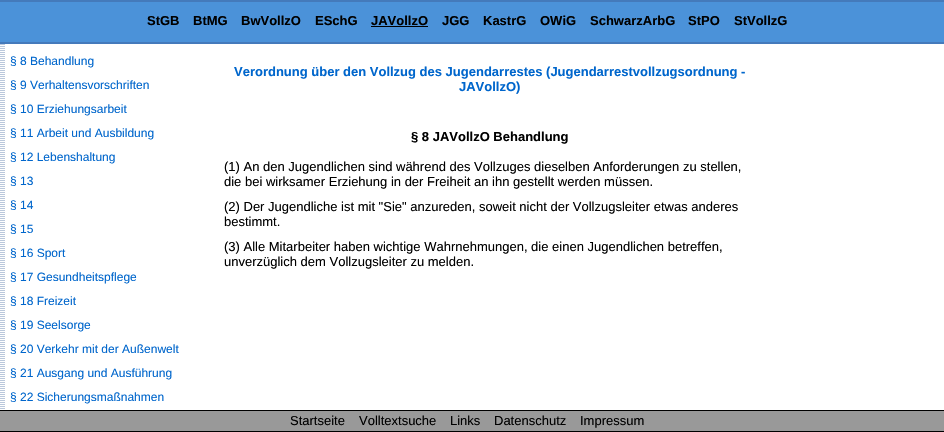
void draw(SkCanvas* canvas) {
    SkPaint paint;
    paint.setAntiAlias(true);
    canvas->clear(0xFFFFFFFF);
    paint.setColor(0xFF4B92D9);
    canvas->drawRect(SkRect::MakeXYWH(0, 2, 944, 40), paint);
    paint.setColor(0xFF447ABB);
    canvas->drawRect(SkRect::MakeXYWH(0, 0, 944, 2), paint);
    canvas->drawRect(SkRect::MakeXYWH(0, 42, 944, 2), paint);
    SkFont font1(fontMgr->matchFamilyStyle("Liberation Sans", SkFontStyle::Bold()), 13);
    font1.setSubpixel(true);
    paint.setColor(0xFF000000);
    canvas->drawString("StGB", 147, 25, font1, paint);
    canvas->drawString("BtMG", 193, 25, font1, paint);
    canvas->drawString("BwVollzO", 241, 25, font1, paint);
    canvas->drawString("ESchG", 315, 25, font1, paint);
    canvas->drawString("JAVollzO", 371, 25, font1, paint);
    canvas->drawRect(SkRect::MakeXYWH(371, 26, 57, 1), paint);
    canvas->drawString("JGG", 442, 25, font1, paint);
    canvas->drawString("KastrG", 483, 25, font1, paint);
    canvas->drawString("OWiG", 540, 25, font1, paint);
    canvas->drawString("SchwarzArbG", 590, 25, font1, paint);
    canvas->drawString("StPO", 688, 25, font1, paint);
    canvas->drawString("StVollzG", 734, 25, font1, paint);
    canvas->drawImageRect(SkImages::DeferredFromEncodedData(SkData::MakeFromFileName("img1.png")), SkRect::MakeXYWH(0, 44, 5, 365), SkSamplingOptions());
    SkFont font2(fontMgr->matchFamilyStyle("Liberation Sans", SkFontStyle::Normal()), 12);
    font2.setSubpixel(true);
    paint.setColor(0xFF0066CC);
    canvas->drawString("§ 8 Behandlung", 10, 65, font2, paint);
    canvas->drawString("§ 9 Verhaltensvorschriften", 10, 89, font2, paint);
    canvas->drawString("§ 10 Erziehungsarbeit", 10, 113, font2, paint);
    canvas->drawString("§ 11 Arbeit und Ausbildung", 10, 137, font2, paint);
    canvas->drawString("§ 12 Lebenshaltung", 10, 161, font2, paint);
    canvas->drawString("§ 13", 10, 185, font2, paint);
    canvas->drawString("§ 14", 10, 209, font2, paint);
    canvas->drawString("§ 15", 10, 233, font2, paint);
    canvas->drawString("§ 16 Sport", 10, 257, font2, paint);
    canvas->drawString("§ 17 Gesundheitspflege", 10, 281, font2, paint);
    canvas->drawString("§ 18 Freizeit", 10, 305, font2, paint);
    canvas->drawString("§ 19 Seelsorge", 10, 329, font2, paint);
    canvas->drawString("§ 20 Verkehr mit der Außenwelt", 10, 353, font2, paint);
    canvas->drawString("§ 21 Ausgang und Ausführung", 10, 377, font2, paint);
    canvas->drawString("§ 22 Sicherungsmaßnahmen", 10, 401, font2, paint);
    canvas->drawString("Verordnung über den Vollzug des Jugendarrestes (Jugendarrestvollzugsordnung -", 234, 76, font1, paint);
    canvas->drawString("JAVollzO)", 459, 91, font1, paint);
    paint.setColor(0xFF000000);
    canvas->drawString("§ 8 JAVollzO Behandlung", 411, 141, font1, paint);
    SkFont font3(fontMgr->matchFamilyStyle("Liberation Sans", SkFontStyle::Normal()), 13);
    font3.setSubpixel(true);
    canvas->drawString("(1) An den Jugendlichen sind während des Vollzuges dieselben Anforderungen zu stellen,", 224, 171, font3, paint);
    canvas->drawString("die bei wirksamer Erziehung in der Freiheit an ihn gestellt werden müssen.", 224, 186, font3, paint);
    canvas->drawString("(2) Der Jugendliche ist mit \"Sie\" anzureden, soweit nicht der Vollzugsleiter etwas anderes", 224, 211, font3, paint);
    canvas->drawString("bestimmt.", 224, 226, font3, paint);
    canvas->drawString("(3) Alle Mitarbeiter haben wichtige Wahrnehmungen, die einen Jugendlichen betreffen,", 224, 251, font3, paint);
    canvas->drawString("unverzüglich dem Vollzugsleiter zu melden.", 224, 266, font3, paint);
    paint.setColor(0xFF999999);
    canvas->drawRect(SkRect::MakeXYWH(0, 411, 944, 20), paint);
    paint.setColor(0xFF000000);
    canvas->drawRect(SkRect::MakeXYWH(0, 410, 944, 1), paint);
    canvas->drawRect(SkRect::MakeXYWH(0, 431, 944, 1), paint);
    canvas->drawString("Startseite", 290, 425, font3, paint);
    canvas->drawString("Volltextsuche", 359, 425, font3, paint);
    canvas->drawString("Links", 450, 425, font3, paint);
    canvas->drawString("Datenschutz", 494, 425, font3, paint);
    canvas->drawString("Impressum", 580, 425, font3, paint);
}
